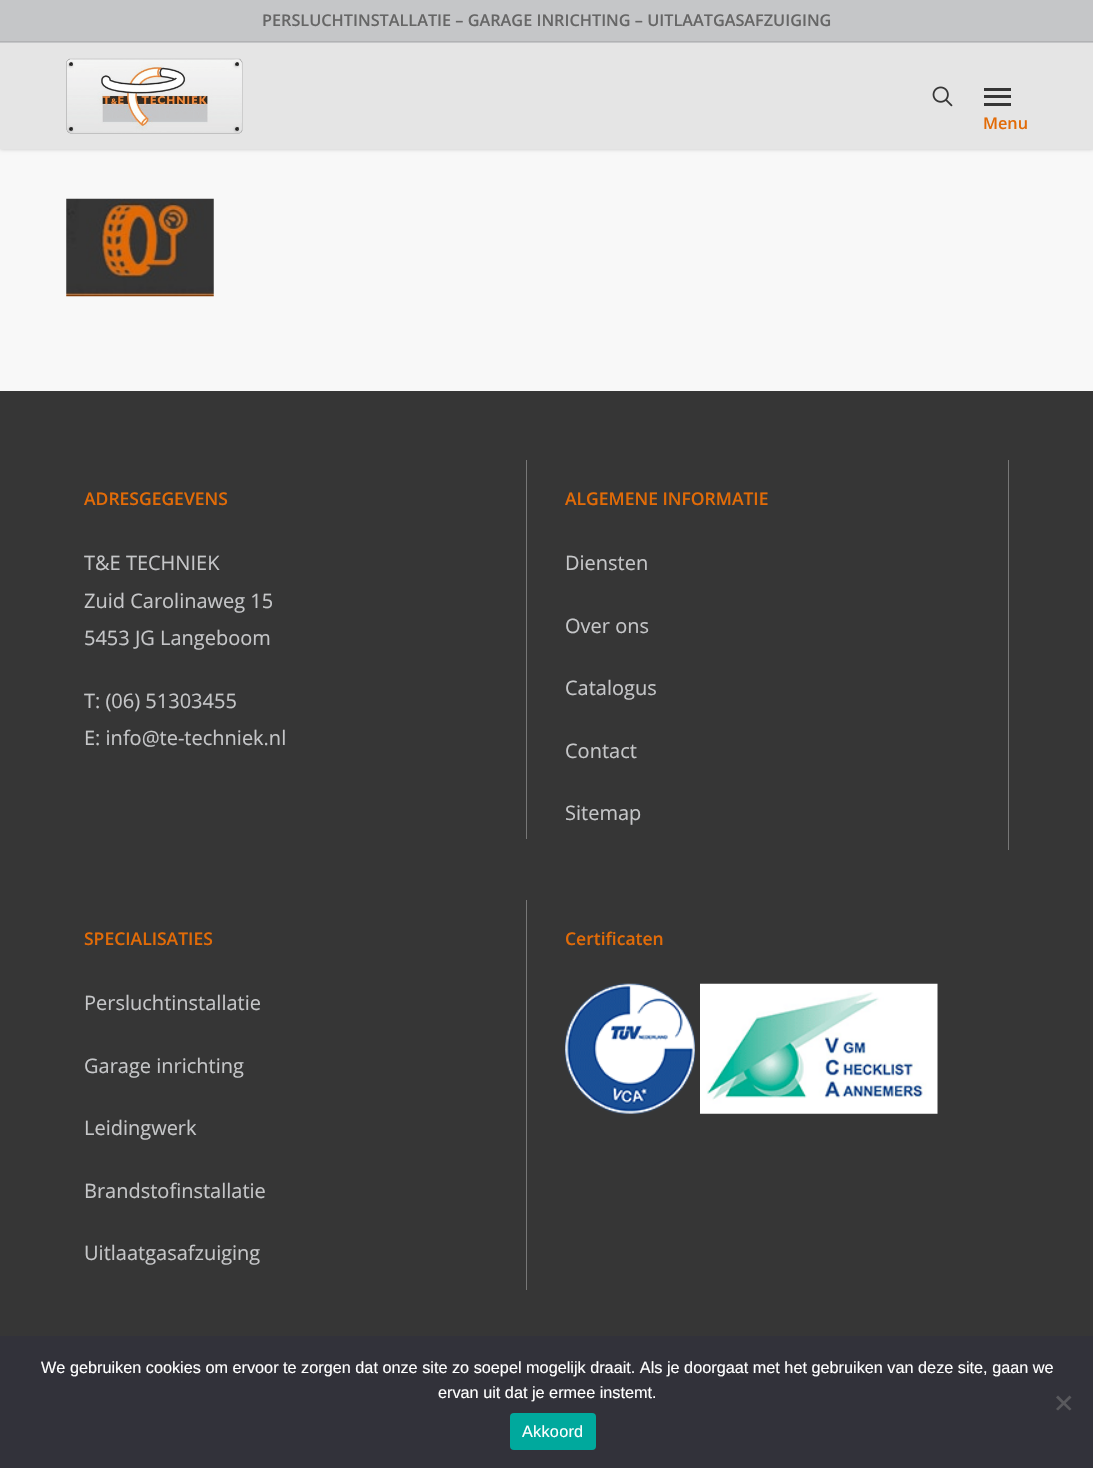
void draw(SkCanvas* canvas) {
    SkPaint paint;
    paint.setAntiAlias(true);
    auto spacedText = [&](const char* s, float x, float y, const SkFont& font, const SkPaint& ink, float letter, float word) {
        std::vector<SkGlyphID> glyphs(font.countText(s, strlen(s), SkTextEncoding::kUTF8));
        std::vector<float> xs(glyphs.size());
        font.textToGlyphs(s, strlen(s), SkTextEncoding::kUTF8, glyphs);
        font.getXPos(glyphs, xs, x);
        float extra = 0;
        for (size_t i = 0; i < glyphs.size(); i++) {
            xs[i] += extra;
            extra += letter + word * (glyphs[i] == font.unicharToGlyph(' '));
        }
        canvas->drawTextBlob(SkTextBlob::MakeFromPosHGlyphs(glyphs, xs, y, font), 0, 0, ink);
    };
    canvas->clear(0xFF363636);
    paint.setColor(0xFFF8F8F8);
    canvas->drawRect(SkRect::MakeXYWH(0, 149, 1093, 242), paint);
    paint.setColor(0x38000000);
    paint.setMaskFilter(SkMaskFilter::MakeBlur(kNormal_SkBlurStyle, 2));
    canvas->drawRect(SkRect::MakeXYWH(0, 0, 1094, 149), paint);
    paint.setMaskFilter(nullptr);
    paint.setColor(0xFFE5E5E5);
    canvas->drawRect(SkRect::MakeXYWH(0, 43, 1093, 106), paint);
    paint.setColor(0xFFC5C6C8);
    canvas->drawRect(SkRect::MakeXYWH(0, 0, 1093, 43), paint);
    paint.setColor(0xFFB1B2B4);
    canvas->drawRect(SkRect::MakeXYWH(0, 41, 1093, 1), paint);
    SkFont font1(fontMgr->matchFamilyStyle("Open Sans", SkFontStyle(600, SkFontStyle::kNormal_Width, SkFontStyle::kUpright_Slant)), 16.25f);
    font1.setSubpixel(true);
    paint.setColor(0xFF666666);
    canvas->drawString("PERSLUCHTINSTALLATIE – GARAGE INRICHTING – UITLAATGASAFZUIGING", 262, 26, font1, paint);
    canvas->drawImageRect(SkImages::DeferredFromEncodedData(SkData::MakeFromFileName("img1.png")), SkRect::MakeXYWH(66, 58, 177, 76), SkSamplingOptions());
    canvas->drawImageRect(SkImages::DeferredFromEncodedData(SkData::MakeFromFileName("img2.png")), SkRect::MakeXYWH(932, 86, 21, 21), SkSamplingOptions());
    paint.setColor(0xFF363636);
    canvas->drawRect(SkRect::MakeXYWH(984, 88, 27, 3), paint);
    canvas->drawRect(SkRect::MakeXYWH(984, 103, 27, 3), paint);
    canvas->drawRect(SkRect::MakeXYWH(984, 95, 27, 3), paint);
    paint.setColor(0xFFE26B07);
    canvas->drawString("Menu", 983, 129, font1, paint);
    canvas->drawImageRect(SkImages::DeferredFromEncodedData(SkData::MakeFromFileName("img3.png")), SkRect::MakeXYWH(66, 198, 148, 99), SkSamplingOptions());
    paint.setColor(0xFF777777);
    canvas->drawRect(SkRect::MakeXYWH(526, 460, 1, 379), paint);
    SkFont font2(fontMgr->matchFamilyStyle("Open Sans", SkFontStyle(600, SkFontStyle::kNormal_Width, SkFontStyle::kUpright_Slant)), 17.5f);
    font2.setSubpixel(true);
    paint.setColor(0xFFE26B07);
    canvas->drawString("ADRESGEGEVENS", 84, 505, font2, paint);
    SkFont font3(fontMgr->matchFamilyStyle("Open Sans", SkFontStyle::Normal()), 20);
    font3.setSubpixel(true);
    paint.setColor(0xFFC5C6C8);
    canvas->drawString("T&E TECHNIEK", 84, 570, font3, paint);
    canvas->drawString("Zuid Carolinaweg 15", 84, 608, font3, paint);
    canvas->drawString("5453 JG Langeboom", 84, 645, font3, paint);
    canvas->drawString("T: (06) 51303455", 84, 708, font3, paint);
    canvas->drawString("E: info@te-techniek.nl", 84, 745, font3, paint);
    paint.setColor(0xFF777777);
    canvas->drawRect(SkRect::MakeXYWH(1008, 460, 1, 390), paint);
    paint.setColor(0xFFE26B07);
    canvas->drawString("ALGEMENE INFORMATIE", 565, 505, font2, paint);
    paint.setColor(0xFFC5C6C8);
    canvas->drawString("Diensten", 565, 570, font3, paint);
    canvas->drawString("Over ons", 565, 633, font3, paint);
    canvas->drawString("Catalogus", 565, 695, font3, paint);
    canvas->drawString("Contact", 565, 758, font3, paint);
    canvas->drawString("Sitemap", 565, 820, font3, paint);
    paint.setColor(0xFF777777);
    canvas->drawRect(SkRect::MakeXYWH(526, 900, 1, 390), paint);
    paint.setColor(0xFFE26B07);
    canvas->drawString("SPECIALISATIES", 84, 945, font2, paint);
    paint.setColor(0xFFC5C6C8);
    canvas->drawString("Persluchtinstallatie", 84, 1010, font3, paint);
    canvas->drawString("Garage inrichting", 84, 1073, font3, paint);
    canvas->drawString("Leidingwerk", 84, 1135, font3, paint);
    canvas->drawString("Brandstofinstallatie", 84, 1198, font3, paint);
    canvas->drawString("Uitlaatgasafzuiging", 84, 1260, font3, paint);
    paint.setColor(0xFFE26B07);
    canvas->drawString("Certificaten", 565, 945, font2, paint);
    canvas->drawImageRect(SkImages::DeferredFromEncodedData(SkData::MakeFromFileName("img4.png")), SkRect::MakeXYWH(565, 983, 130, 131), SkSamplingOptions());
    canvas->drawImageRect(SkImages::DeferredFromEncodedData(SkData::MakeFromFileName("img5.png")), SkRect::MakeXYWH(700, 983, 238, 131), SkSamplingOptions());
    paint.setColor(0xFF32323A);
    canvas->drawRect(SkRect::MakeXYWH(0, 1336, 1093, 132), paint);
    SkFont font4(fontMgr->matchFamilyStyle("Liberation Sans", SkFontStyle::Normal()), 16.25f);
    font4.setSubpixel(true);
    paint.setColor(0xFFFFFFFF);
    canvas->drawString("We gebruiken cookies om ervoor te zorgen dat onze site zo soepel mogelijk draait. Als je doorgaat met het gebruiken van deze site, gaan we", 41, 1373, font4, paint);
    canvas->drawString("ervan uit dat je ermee instemt.", 438, 1398, font4, paint);
    paint.setColor(0xFF59595D);
    canvas->drawPath(SkPathBuilder().moveTo(1069.5f, 1395.5f).lineTo(1071.5f, 1397.5f).lineTo(1058, 1410.5f).lineTo(1056, 1409).close().detach(), paint);
    canvas->drawPath(SkPathBuilder().moveTo(1056, 1397.5f).lineTo(1058, 1395.5f).lineTo(1071.5f, 1409).lineTo(1069.5f, 1410.5f).close().detach(), paint);
    paint.setColor(0xFF00A99D);
    canvas->drawRoundRect(SkRect::MakeXYWH(510, 1413, 86, 37), 4, 4, paint);
    paint.setColor(0xFFFFFFFF);
    spacedText("Akkoord", 522, 1437, font4, paint, 0.25f, 0);
}
